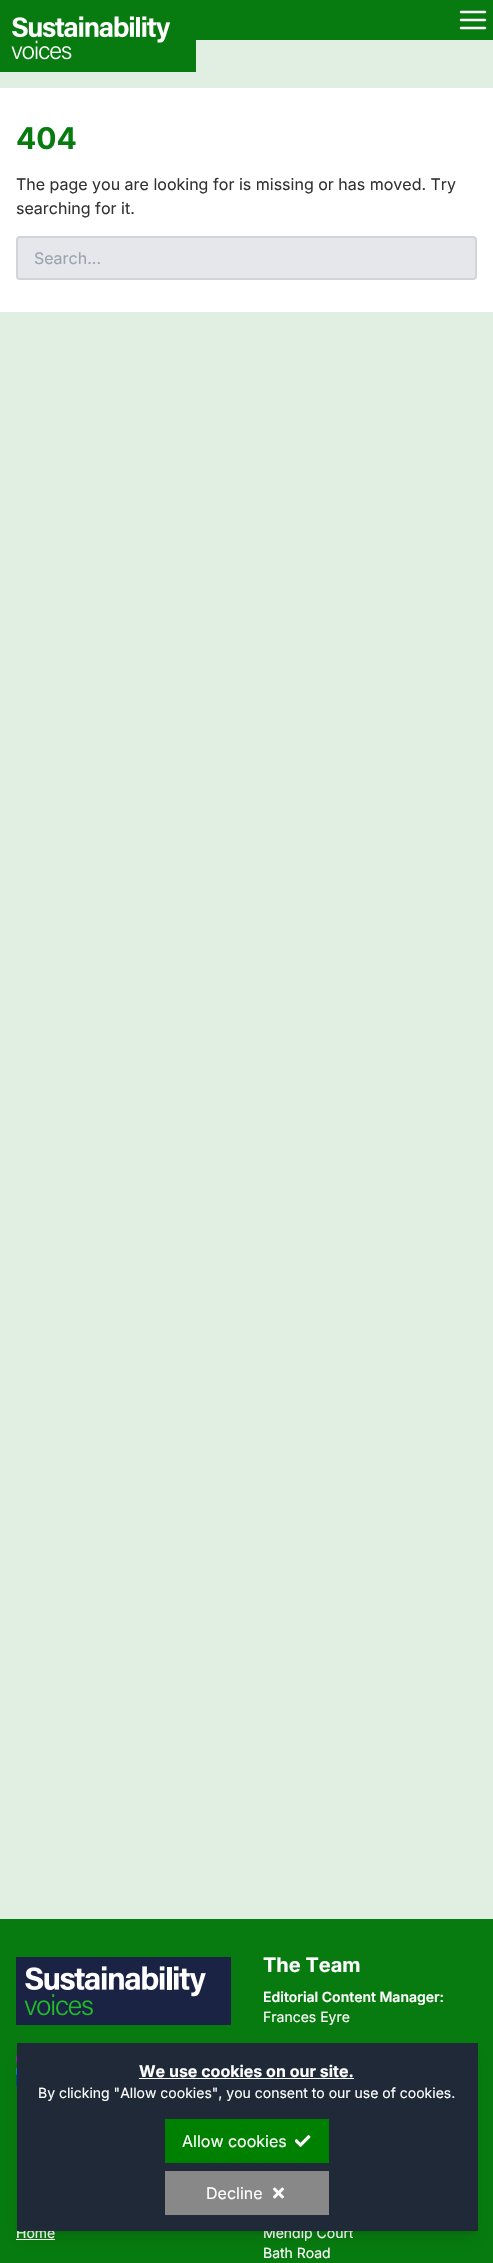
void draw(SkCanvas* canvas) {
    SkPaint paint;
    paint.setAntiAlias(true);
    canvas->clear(0xFFE1EFE2);
    paint.setColor(0xFF077B0F);
    canvas->drawRect(SkRect::MakeXYWH(0, 0, 493, 40), paint);
    paint.setStyle(SkPaint::kStroke_Style);
    paint.setStrokeWidth(2.4f);
    paint.setStrokeCap(SkPaint::kRound_Cap);
    paint.setColor(0xFFFFFFFF);
    canvas->drawPath(SkPathBuilder().moveTo(461, 12).lineTo(485, 12).moveTo(461, 20).lineTo(485, 20).moveTo(461, 28).lineTo(485, 28).detach(), paint);
    paint.setStyle(SkPaint::kFill_Style);
    paint.setColor(0xFF077B0F);
    canvas->drawRect(SkRect::MakeXYWH(0, 40, 196, 32), paint);
    canvas->drawImageRect(SkImages::DeferredFromEncodedData(SkData::MakeFromFileName("img1.png")), SkRect::MakeXYWH(11, 16, 160, 44), SkSamplingOptions());
    paint.setColor(0xFFFFFFFF);
    canvas->drawRect(SkRect::MakeXYWH(0, 88, 493, 224), paint);
    SkFont font1(fontMgr->matchFamilyStyle("Inter", SkFontStyle::Bold()), 30);
    font1.setSubpixel(true);
    paint.setColor(0xFF077B0F);
    canvas->drawString("404", 16, 149, font1, paint);
    SkFont font2(fontMgr->matchFamilyStyle("Inter", SkFontStyle::Normal()), 16);
    font2.setSubpixel(true);
    paint.setColor(0xFF333333);
    canvas->drawString("The page you are looking for is missing or has moved. Try", 16, 190, font2, paint);
    canvas->drawString("searching for it.", 16, 214, font2, paint);
    paint.setColor(0xFFE5E7EB);
    canvas->drawRoundRect(SkRect::MakeXYWH(17, 237, 459, 42), 3, 3, paint);
    paint.setStyle(SkPaint::kStroke_Style);
    paint.setStrokeWidth(2);
    paint.setStrokeCap(SkPaint::kButt_Cap);
    paint.setColor(0xFFD1D5DB);
    canvas->drawRoundRect(SkRect::MakeXYWH(17, 237, 459, 42), 3, 3, paint);
    paint.setStyle(SkPaint::kFill_Style);
    paint.setColor(0xFF9CA3AF);
    canvas->drawString("Search...", 34, 264, font2, paint);
    paint.setColor(0xFF077B0F);
    canvas->drawRect(SkRect::MakeXYWH(0, 1919, 493, 344), paint);
    canvas->drawImageRect(SkImages::DeferredFromEncodedData(SkData::MakeFromFileName("img2.png")), SkRect::MakeXYWH(16, 1957, 215, 68), SkSamplingOptions());
    canvas->drawImageRect(SkImages::DeferredFromEncodedData(SkData::MakeFromFileName("img3.png")), SkRect::MakeXYWH(16, 2055, 1, 32), SkSamplingOptions());
    SkFont font3(fontMgr->matchFamilyStyle("Inter", SkFontStyle::Bold()), 20);
    font3.setSubpixel(true);
    paint.setColor(0xFFFFFFFF);
    canvas->drawString("The Team", 263, 1972, font3, paint);
    SkFont font4(fontMgr->matchFamilyStyle("Inter", SkFontStyle(600, SkFontStyle::kNormal_Width, SkFontStyle::kUpright_Slant)), 14);
    font4.setSubpixel(true);
    canvas->drawString("Editorial Content Manager:", 263, 2002, font4, paint);
    SkFont font5(fontMgr->matchFamilyStyle("Inter", SkFontStyle::Normal()), 14);
    font5.setSubpixel(true);
    canvas->drawString("Frances Eyre", 263, 2022, font5, paint);
    canvas->drawString("Home", 16, 2238, font5, paint);
    canvas->drawRect(SkRect::MakeXYWH(16, 2239, 39, 1), paint);
    canvas->drawString("Mendip Court", 263, 2238, font5, paint);
    canvas->drawString("Bath Road", 263, 2258, font5, paint);
    paint.setColor(0x1A000000);
    paint.setMaskFilter(SkMaskFilter::MakeBlur(kNormal_SkBlurStyle, 3));
    canvas->drawRect(SkRect::MakeXYWH(21, 2051, 453, 180), paint);
    paint.setMaskFilter(nullptr);
    paint.setMaskFilter(SkMaskFilter::MakeBlur(kNormal_SkBlurStyle, 7.5f));
    canvas->drawRect(SkRect::MakeXYWH(20, 2056, 455, 182), paint);
    paint.setMaskFilter(nullptr);
    paint.setColor(0xFF1F2937);
    canvas->drawRect(SkRect::MakeXYWH(17, 2043, 461, 188), paint);
    SkFont font6(fontMgr->matchFamilyStyle("Inter", SkFontStyle::Bold()), 16);
    font6.setSubpixel(true);
    paint.setColor(0xFFFFFFFF);
    canvas->drawString("We use cookies on our site.", 139, 2077, font6, paint);
    canvas->drawRect(SkRect::MakeXYWH(139, 2078, 215, 1), paint);
    canvas->drawString("By clicking \"Allow cookies\", you consent to our use of cookies.", 38, 2098, font5, paint);
    paint.setColor(0xFF008000);
    canvas->drawRect(SkRect::MakeXYWH(165, 2119, 164, 44), paint);
    paint.setColor(0xFFFFFFFF);
    canvas->drawString("Allow cookies", 182, 2147, font2, paint);
    canvas->drawImageRect(SkImages::DeferredFromEncodedData(SkData::MakeFromFileName("img4.png")), SkRect::MakeXYWH(295, 2135, 16, 12), SkSamplingOptions());
    paint.setColor(0xFF888888);
    canvas->drawRect(SkRect::MakeXYWH(165, 2171, 164, 44), paint);
    paint.setColor(0xFFFFFFFF);
    canvas->drawString("Decline", 206, 2199, font2, paint);
    canvas->drawImageRect(SkImages::DeferredFromEncodedData(SkData::MakeFromFileName("img5.png")), SkRect::MakeXYWH(273, 2187, 11, 12), SkSamplingOptions());
}
